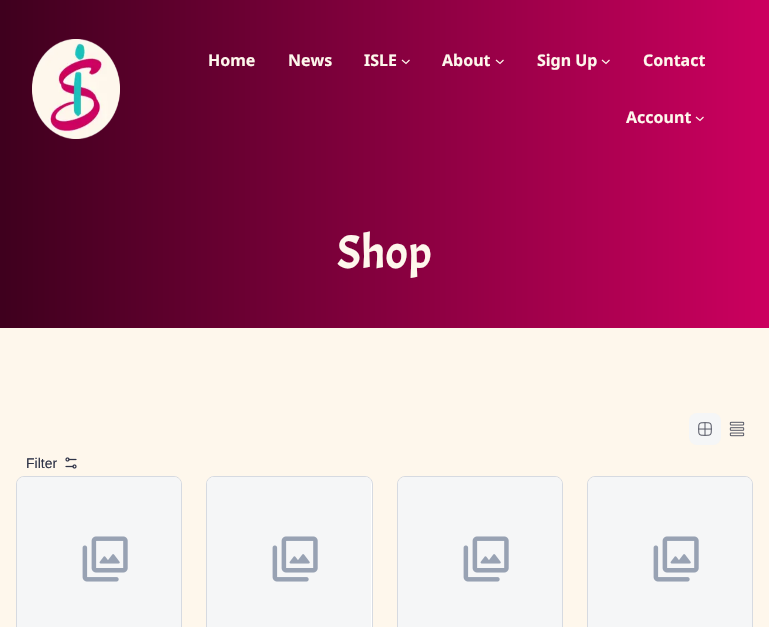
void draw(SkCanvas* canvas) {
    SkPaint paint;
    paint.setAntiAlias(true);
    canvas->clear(0xFFFEF7EC);
    {
        const SkColor colors[] = {0xFF3D001D, 0xFFCC005F};
        const float stops[] = {0, 1};
        const SkPoint ends[] = {{-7.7f, 89}, {769, 89}};
        paint.setShader(SkGradientShader::MakeLinear(ends, colors, stops, 2, SkTileMode::kClamp));
        paint.setAlpha(255);
    }
    canvas->drawRect(SkRect::MakeXYWH(0, 0, 769, 178), paint);
    canvas->drawImageRect(SkImages::DeferredFromEncodedData(SkData::MakeFromFileName("img1.png")), SkRect::MakeXYWH(32, 39, 88, 100), SkSamplingOptions());
    SkFont font1(fontMgr->matchFamilyStyle("Noto Sans", SkFontStyle::Bold()), 16);
    font1.setSubpixel(true);
    paint.setShader(nullptr);
    paint.setColor(0xFFFEF7EC);
    canvas->drawString("Home", 208, 66, font1, paint);
    canvas->drawString("News", 288, 66, font1, paint);
    canvas->drawString("ISLE", 364, 66, font1, paint);
    paint.setStyle(SkPaint::kStroke_Style);
    paint.setStrokeWidth(1.2f);
    canvas->drawPath(SkPathBuilder().moveTo(402, 60).lineTo(406, 63.5f).lineTo(409.5f, 60).detach(), paint);
    paint.setStyle(SkPaint::kFill_Style);
    canvas->drawString("About", 442, 66, font1, paint);
    paint.setStyle(SkPaint::kStroke_Style);
    canvas->drawPath(SkPathBuilder().moveTo(496, 60).lineTo(500, 63.5f).lineTo(503.5f, 60).detach(), paint);
    paint.setStyle(SkPaint::kFill_Style);
    canvas->drawString("Sign Up", 537, 66, font1, paint);
    paint.setStyle(SkPaint::kStroke_Style);
    canvas->drawPath(SkPathBuilder().moveTo(602, 60).lineTo(606, 63.5f).lineTo(609.5f, 60).detach(), paint);
    paint.setStyle(SkPaint::kFill_Style);
    canvas->drawString("Contact", 643, 66, font1, paint);
    canvas->drawString("Account", 626, 123, font1, paint);
    paint.setStyle(SkPaint::kStroke_Style);
    canvas->drawPath(SkPathBuilder().moveTo(696, 117).lineTo(700, 120.5f).lineTo(703.5f, 117).detach(), paint);
    paint.setStyle(SkPaint::kFill_Style);
    {
        const SkColor colors[] = {0xFF3D001D, 0xFFCC005F};
        const float stops[] = {0, 1};
        const SkPoint ends[] = {{-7.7f, 253}, {769, 253}};
        paint.setShader(SkGradientShader::MakeLinear(ends, colors, stops, 2, SkTileMode::kClamp));
        paint.setAlpha(255);
    }
    canvas->drawRect(SkRect::MakeXYWH(0, 178, 769, 150), paint);
    SkFont font2(fontMgr->matchFamilyStyle("Acme", SkFontStyle::Normal()), 47);
    font2.setSubpixel(true);
    paint.setShader(nullptr);
    paint.setColor(0xFFFEF7EC);
    canvas->drawString("Shop", 337, 268, font2, paint);
    paint.setColor(0xFFF5F6F7);
    canvas->drawRoundRect(SkRect::MakeXYWH(689, 413, 32, 32), 8, 8, paint);
    canvas->drawImageRect(SkImages::DeferredFromEncodedData(SkData::MakeFromFileName("img2.png")), SkRect::MakeXYWH(698, 422, 14, 14), SkSamplingOptions());
    canvas->drawImageRect(SkImages::DeferredFromEncodedData(SkData::MakeFromFileName("img3.png")), SkRect::MakeXYWH(729, 421, 16, 16), SkSamplingOptions());
    SkFont font3(fontMgr->matchFamilyStyle("Liberation Sans", SkFontStyle::Normal()), 14);
    font3.setSubpixel(true);
    paint.setColor(0xFF2F3448);
    canvas->drawString("Filter", 26, 468, font3, paint);
    canvas->drawImageRect(SkImages::DeferredFromEncodedData(SkData::MakeFromFileName("img4.png")), SkRect::MakeXYWH(65, 457, 12, 12), SkSamplingOptions());
    paint.setStyle(SkPaint::kStroke_Style);
    paint.setStrokeWidth(1);
    paint.setColor(0xFFD6DAE1);
    canvas->drawRoundRect(SkRect::MakeXYWH(16.5f, 476.5f, 165, 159), 7.5f, 7.5f, paint);
    canvas->drawImageRect(SkImages::DeferredFromEncodedData(SkData::MakeFromFileName("img5.png")), SkRect::MakeXYWH(17, 477, 164, 150), SkSamplingOptions());
    paint.setStyle(SkPaint::kFill_Style);
    paint.setColor(0xFFFFFFFF);
    canvas->drawRoundRect(SkRect::MakeXYWH(206.5f, 476.5f, 166, 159), 7.5f, 7.5f, paint);
    paint.setStyle(SkPaint::kStroke_Style);
    paint.setColor(0xFFD6DAE1);
    canvas->drawRoundRect(SkRect::MakeXYWH(206.5f, 476.5f, 166, 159), 7.5f, 7.5f, paint);
    canvas->drawImageRect(SkImages::DeferredFromEncodedData(SkData::MakeFromFileName("img6.png")), SkRect::MakeXYWH(207, 477, 164, 150), SkSamplingOptions());
    canvas->drawRoundRect(SkRect::MakeXYWH(397.5f, 476.5f, 165, 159), 7.5f, 7.5f, paint);
    canvas->drawImageRect(SkImages::DeferredFromEncodedData(SkData::MakeFromFileName("img5.png")), SkRect::MakeXYWH(398, 477, 164, 150), SkSamplingOptions());
    canvas->drawRoundRect(SkRect::MakeXYWH(587.5f, 476.5f, 165, 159), 7.5f, 7.5f, paint);
    canvas->drawImageRect(SkImages::DeferredFromEncodedData(SkData::MakeFromFileName("img5.png")), SkRect::MakeXYWH(588, 477, 164, 150), SkSamplingOptions());
}
